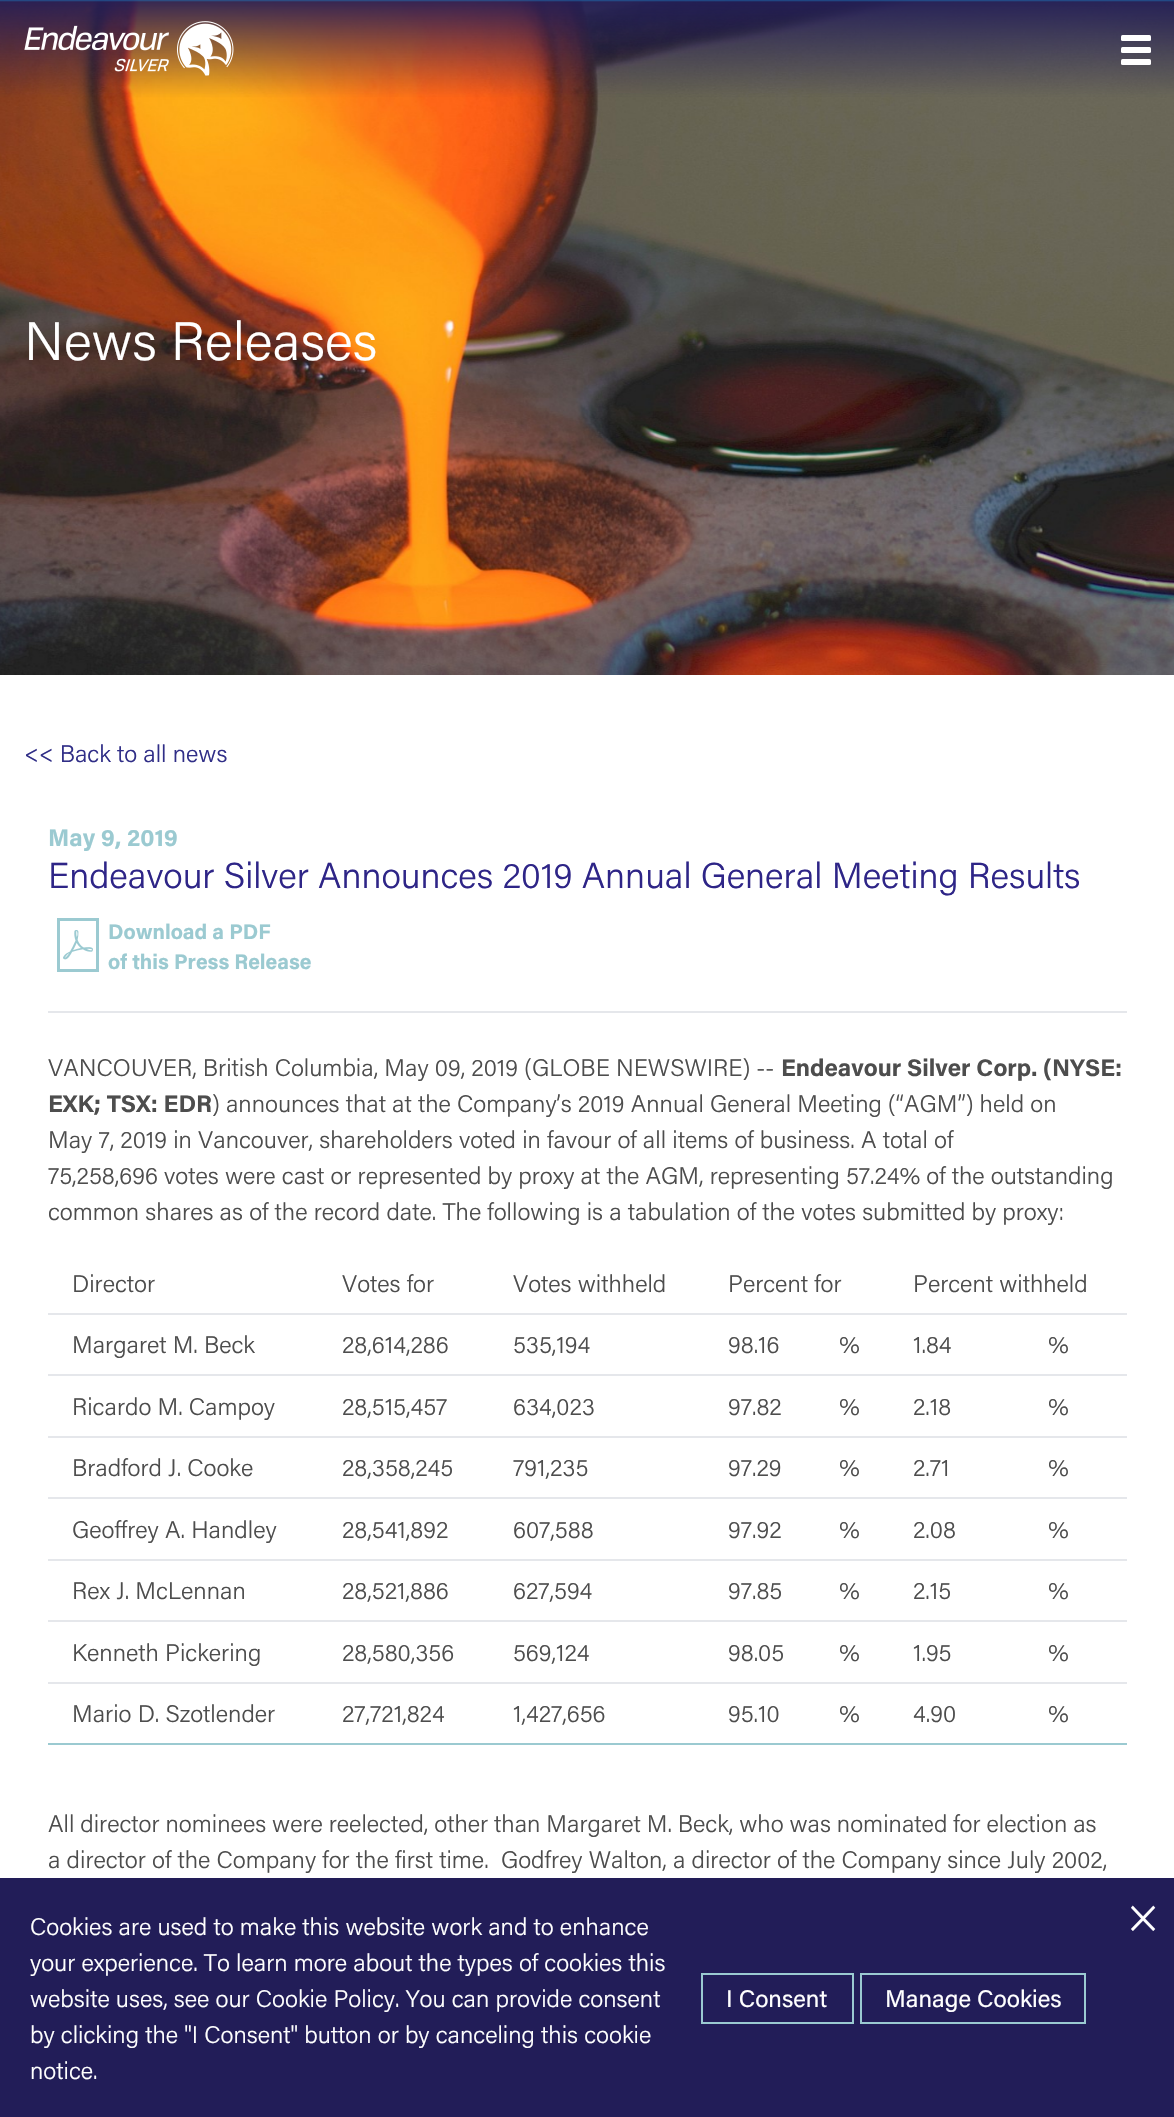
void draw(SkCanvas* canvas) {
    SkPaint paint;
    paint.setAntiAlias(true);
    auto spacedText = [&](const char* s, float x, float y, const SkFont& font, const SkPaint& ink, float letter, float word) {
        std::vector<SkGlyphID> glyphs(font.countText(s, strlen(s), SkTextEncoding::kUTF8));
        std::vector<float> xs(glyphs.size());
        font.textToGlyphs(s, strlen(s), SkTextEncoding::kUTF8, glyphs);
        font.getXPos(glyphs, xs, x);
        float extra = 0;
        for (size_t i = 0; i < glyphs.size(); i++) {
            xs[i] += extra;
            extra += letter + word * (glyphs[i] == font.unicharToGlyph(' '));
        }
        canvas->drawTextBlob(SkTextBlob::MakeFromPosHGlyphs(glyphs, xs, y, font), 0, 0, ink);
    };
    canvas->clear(0xFFFFFFFF);
    canvas->drawImageRect(SkImages::DeferredFromEncodedData(SkData::MakeFromFileName("img2.png")), SkRect::MakeXYWH(0, 0, 1174, 675), SkSamplingOptions());
    canvas->drawImageRect(SkImages::DeferredFromEncodedData(SkData::MakeFromFileName("img1.png")), SkRect::MakeXYWH(24, 21, 210, 55), SkSamplingOptions());
    paint.setColor(0xFFFFFFFF);
    canvas->drawRoundRect(SkRect::MakeXYWH(1121, 35, 30, 6), 1.5f, 1.5f, paint);
    canvas->drawRoundRect(SkRect::MakeXYWH(1121, 47, 30, 6), 1.5f, 1.5f, paint);
    canvas->drawRoundRect(SkRect::MakeXYWH(1121, 59, 30, 6), 1.5f, 1.5f, paint);
    SkFont font1(fontMgr->matchFamilyStyle("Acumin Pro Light", SkFontStyle(300, SkFontStyle::kNormal_Width, SkFontStyle::kUpright_Slant)), 54);
    font1.setSubpixel(true);
    canvas->drawString("News Releases", 24, 360, font1, paint);
    SkFont font2(fontMgr->matchFamilyStyle("Acumin Pro Light", SkFontStyle(300, SkFontStyle::kNormal_Width, SkFontStyle::kUpright_Slant)), 24);
    font2.setSubpixel(true);
    paint.setColor(0xFF302E87);
    canvas->drawString("<< Back to all news", 24, 762, font2, paint);
    paint.setColor(0xFFE5E7EB);
    canvas->drawRect(SkRect::MakeXYWH(48, 1011, 1079, 2), paint);
    SkFont font3(fontMgr->matchFamilyStyle("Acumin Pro", SkFontStyle::Bold()), 24);
    font3.setSubpixel(true);
    paint.setColor(0xFF9BCAD1);
    canvas->drawString("May 9, 2019", 48, 846, font3, paint);
    SkFont font4(fontMgr->matchFamilyStyle("Acumin Pro Light", SkFontStyle(300, SkFontStyle::kNormal_Width, SkFontStyle::kUpright_Slant)), 36);
    font4.setSubpixel(true);
    paint.setColor(0xFF2E2587);
    canvas->drawString("Endeavour Silver Announces 2019 Annual General Meeting Results", 48, 888, font4, paint);
    canvas->drawImageRect(SkImages::DeferredFromEncodedData(SkData::MakeFromFileName("img3.png")), SkRect::MakeXYWH(57, 918, 42, 54), SkSamplingOptions());
    SkFont font5(fontMgr->matchFamilyStyle("Acumin Pro", SkFontStyle::Bold()), 21);
    font5.setSubpixel(true);
    paint.setColor(0xFF9BCAD1);
    canvas->drawString("Download a PDF", 108, 939, font5, paint);
    canvas->drawString("of this Press Release", 108, 969, font5, paint);
    paint.setColor(0xFF4D4D4D);
    canvas->drawString("VANCOUVER, British Columbia, May 09, 2019 (GLOBE NEWSWIRE) --", 48, 1076, font2, paint);
    canvas->drawString("Endeavour Silver Corp. (NYSE:", 781, 1076, font3, paint);
    canvas->drawString("EXK; TSX: EDR", 48, 1112, font3, paint);
    canvas->drawString(") announces that at the Company’s 2019 Annual General Meeting (“AGM”) held on", 212, 1112, font2, paint);
    canvas->drawString("May 7, 2019 in Vancouver, shareholders voted in favour of all items of business. A total of", 48, 1148, font2, paint);
    canvas->drawString("75,258,696 votes were cast or represented by proxy at the AGM, representing 57.24% of the outstanding", 48, 1184, font2, paint);
    canvas->drawString("common shares as of the record date. The following is a tabulation of the votes submitted by proxy:", 48, 1220, font2, paint);
    paint.setColor(0xFFE5E7EB);
    canvas->drawRect(SkRect::MakeXYWH(48, 1313, 1079, 2), paint);
    paint.setColor(0xFF4D4D4D);
    canvas->drawString("Director", 72, 1292, font2, paint);
    canvas->drawString("Votes for", 342, 1292, font2, paint);
    canvas->drawString("Votes withheld", 513, 1292, font2, paint);
    canvas->drawString("Percent for", 728, 1292, font2, paint);
    canvas->drawString("Percent withheld", 913, 1292, font2, paint);
    paint.setColor(0xFFE5E7EB);
    canvas->drawRect(SkRect::MakeXYWH(48, 1374, 1079, 2), paint);
    paint.setColor(0xFF4D4D4D);
    canvas->drawString("Margaret M. Beck", 72, 1353, font2, paint);
    canvas->drawString("28,614,286", 342, 1353, font2, paint);
    canvas->drawString("535,194", 513, 1353, font2, paint);
    canvas->drawString("98.16", 728, 1353, font2, paint);
    canvas->drawString("%", 839, 1353, font2, paint);
    canvas->drawString("1.84", 913, 1353, font2, paint);
    canvas->drawString("%", 1048, 1353, font2, paint);
    paint.setColor(0xFFE5E7EB);
    canvas->drawRect(SkRect::MakeXYWH(48, 1436, 1079, 2), paint);
    paint.setColor(0xFF4D4D4D);
    canvas->drawString("Ricardo M. Campoy", 72, 1415, font2, paint);
    canvas->drawString("28,515,457", 342, 1415, font2, paint);
    canvas->drawString("634,023", 513, 1415, font2, paint);
    canvas->drawString("97.82", 728, 1415, font2, paint);
    canvas->drawString("%", 839, 1415, font2, paint);
    canvas->drawString("2.18", 913, 1415, font2, paint);
    canvas->drawString("%", 1048, 1415, font2, paint);
    paint.setColor(0xFFE5E7EB);
    canvas->drawRect(SkRect::MakeXYWH(48, 1497, 1079, 2), paint);
    paint.setColor(0xFF4D4D4D);
    canvas->drawString("Bradford J. Cooke", 72, 1476, font2, paint);
    canvas->drawString("28,358,245", 342, 1476, font2, paint);
    canvas->drawString("791,235", 513, 1476, font2, paint);
    canvas->drawString("97.29", 728, 1476, font2, paint);
    canvas->drawString("%", 839, 1476, font2, paint);
    canvas->drawString("2.71", 913, 1476, font2, paint);
    canvas->drawString("%", 1048, 1476, font2, paint);
    paint.setColor(0xFFE5E7EB);
    canvas->drawRect(SkRect::MakeXYWH(48, 1559, 1079, 2), paint);
    paint.setColor(0xFF4D4D4D);
    canvas->drawString("Geoffrey A. Handley", 72, 1538, font2, paint);
    canvas->drawString("28,541,892", 342, 1538, font2, paint);
    canvas->drawString("607,588", 513, 1538, font2, paint);
    canvas->drawString("97.92", 728, 1538, font2, paint);
    canvas->drawString("%", 839, 1538, font2, paint);
    canvas->drawString("2.08", 913, 1538, font2, paint);
    canvas->drawString("%", 1048, 1538, font2, paint);
    paint.setColor(0xFFE5E7EB);
    canvas->drawRect(SkRect::MakeXYWH(48, 1620, 1079, 2), paint);
    paint.setColor(0xFF4D4D4D);
    canvas->drawString("Rex J. McLennan", 72, 1599, font2, paint);
    canvas->drawString("28,521,886", 342, 1599, font2, paint);
    canvas->drawString("627,594", 513, 1599, font2, paint);
    canvas->drawString("97.85", 728, 1599, font2, paint);
    canvas->drawString("%", 839, 1599, font2, paint);
    canvas->drawString("2.15", 913, 1599, font2, paint);
    canvas->drawString("%", 1048, 1599, font2, paint);
    paint.setColor(0xFFE5E7EB);
    canvas->drawRect(SkRect::MakeXYWH(48, 1682, 1079, 2), paint);
    paint.setColor(0xFF4D4D4D);
    canvas->drawString("Kenneth Pickering", 72, 1661, font2, paint);
    canvas->drawString("28,580,356", 342, 1661, font2, paint);
    canvas->drawString("569,124", 513, 1661, font2, paint);
    canvas->drawString("98.05", 728, 1661, font2, paint);
    canvas->drawString("%", 839, 1661, font2, paint);
    canvas->drawString("1.95", 913, 1661, font2, paint);
    canvas->drawString("%", 1048, 1661, font2, paint);
    paint.setColor(0xFF9BCAD1);
    canvas->drawRect(SkRect::MakeXYWH(48, 1743, 1079, 2), paint);
    paint.setColor(0xFF4D4D4D);
    canvas->drawString("Mario D. Szotlender", 72, 1722, font2, paint);
    canvas->drawString("27,721,824", 342, 1722, font2, paint);
    canvas->drawString("1,427,656", 513, 1722, font2, paint);
    canvas->drawString("95.10", 728, 1722, font2, paint);
    canvas->drawString("%", 839, 1722, font2, paint);
    canvas->drawString("4.90", 913, 1722, font2, paint);
    canvas->drawString("%", 1048, 1722, font2, paint);
    spacedText("All director nominees were re‑elected, other than Margaret M. Beck, who was nominated for election as", 48, 1832, font2, paint, 0, -0.25f);
    canvas->drawString("a director of the Company for the first time.  Godfrey Walton, a director of the Company since July 2002,", 48, 1868, font2, paint);
    paint.setColor(0xFF221D58);
    canvas->drawRect(SkRect::MakeXYWH(0, 1878, 1174, 239), paint);
    paint.setColor(0xFFFFFFFF);
    canvas->drawString("Cookies are used to make this website work and to enhance", 30, 1935, font2, paint);
    canvas->drawString("your experience. To learn more about the types of cookies this", 30, 1971, font2, paint);
    canvas->drawString("website uses, see our Cookie Policy. You can provide consent", 30, 2007, font2, paint);
    canvas->drawString("by clicking the \"I Consent\" button or by canceling this cookie", 30, 2043, font2, paint);
    canvas->drawString("notice.", 30, 2079, font2, paint);
    paint.setStyle(SkPaint::kStroke_Style);
    paint.setStrokeWidth(2);
    paint.setColor(0xFF9BCAD1);
    canvas->drawRect(SkRect::MakeXYWH(702, 1974, 151, 49), paint);
    SkFont font6(fontMgr->matchFamilyStyle("Acumin Pro", SkFontStyle::Normal()), 24);
    font6.setSubpixel(true);
    paint.setStyle(SkPaint::kFill_Style);
    paint.setColor(0xFFFFFFFF);
    canvas->drawString("I Consent", 726, 2007, font6, paint);
    paint.setStyle(SkPaint::kStroke_Style);
    paint.setColor(0xFF9BCAD1);
    canvas->drawRect(SkRect::MakeXYWH(861, 1974, 224, 49), paint);
    paint.setStyle(SkPaint::kFill_Style);
    paint.setColor(0xFFFFFFFF);
    canvas->drawString("Manage Cookies", 885, 2007, font6, paint);
    SkFont font7(fontMgr->matchFamilyStyle("Acumin Pro Light", SkFontStyle(300, SkFontStyle::kNormal_Width, SkFontStyle::kUpright_Slant)), 45);
    font7.setSubpixel(true);
    canvas->drawString("×", 1127, 1931, font7, paint);
}
